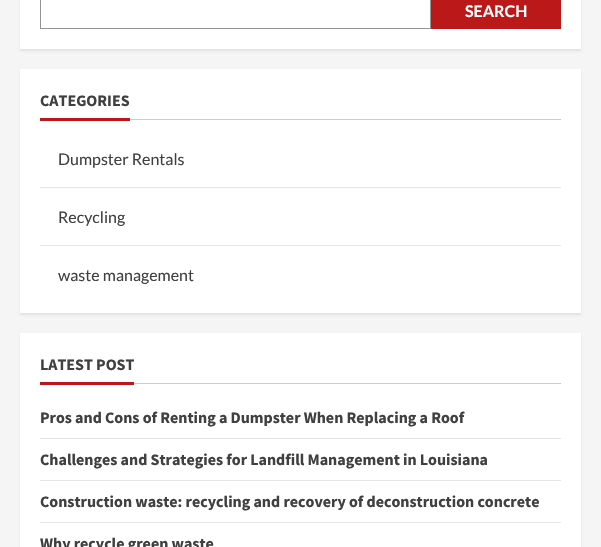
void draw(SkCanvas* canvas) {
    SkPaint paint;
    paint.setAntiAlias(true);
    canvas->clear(0xFFF5F5F5);
    paint.setColor(0x14000000);
    paint.setMaskFilter(SkMaskFilter::MakeBlur(kNormal_SkBlurStyle, 1));
    canvas->drawRect(SkRect::MakeXYWH(20, -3, 561, 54), paint);
    paint.setMaskFilter(nullptr);
    paint.setColor(0xFFFFFFFF);
    canvas->drawRect(SkRect::MakeXYWH(20, 0, 561, 49), paint);
    paint.setStyle(SkPaint::kStroke_Style);
    paint.setStrokeWidth(1);
    paint.setColor(0xFF949494);
    canvas->drawRect(SkRect::MakeXYWH(40.5f, -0.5f, 390, 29), paint);
    paint.setStyle(SkPaint::kFill_Style);
    paint.setColor(0xFFBB1919);
    canvas->drawRect(SkRect::MakeXYWH(431, 0, 130, 29), paint);
    SkFont font1(fontMgr->matchFamilyStyle("Lato", SkFontStyle::Bold()), 16);
    font1.setSubpixel(true);
    paint.setColor(0xFFFFFFFF);
    canvas->drawString("SEARCH", 465, 17, font1, paint);
    paint.setColor(0x14000000);
    paint.setMaskFilter(SkMaskFilter::MakeBlur(kNormal_SkBlurStyle, 1));
    canvas->drawRect(SkRect::MakeXYWH(20, 71, 561, 244), paint);
    paint.setMaskFilter(nullptr);
    paint.setColor(0xFFFFFFFF);
    canvas->drawRect(SkRect::MakeXYWH(20, 69, 561, 244), paint);
    paint.setColor(0xFFCCCCCC);
    canvas->drawRect(SkRect::MakeXYWH(130, 119, 431, 1), paint);
    SkFont font2(fontMgr->matchFamilyStyle("Source Sans Pro", SkFontStyle::Bold()), 16);
    font2.setSubpixel(true);
    paint.setColor(0xFF404040);
    canvas->drawString("CATEGORIES", 40, 106, font2, paint);
    paint.setColor(0xFFBB1919);
    canvas->drawRect(SkRect::MakeXYWH(40, 118, 90, 3), paint);
    paint.setColor(0xFFE6E6E6);
    canvas->drawRect(SkRect::MakeXYWH(40, 187, 521, 1), paint);
    SkFont font3(fontMgr->matchFamilyStyle("Lato", SkFontStyle::Normal()), 16);
    font3.setSubpixel(true);
    paint.setColor(0xFF404040);
    canvas->drawString("Dumpster Rentals", 58, 165, font3, paint);
    paint.setColor(0xFFE6E6E6);
    canvas->drawRect(SkRect::MakeXYWH(40, 245, 521, 1), paint);
    paint.setColor(0xFF404040);
    canvas->drawString("Recycling", 58, 223, font3, paint);
    canvas->drawString("waste management", 58, 281, font3, paint);
    paint.setColor(0x14000000);
    paint.setMaskFilter(SkMaskFilter::MakeBlur(kNormal_SkBlurStyle, 1));
    canvas->drawRect(SkRect::MakeXYWH(20, 335, 561, 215), paint);
    paint.setMaskFilter(nullptr);
    paint.setColor(0xFFFFFFFF);
    canvas->drawRect(SkRect::MakeXYWH(20, 333, 561, 214), paint);
    paint.setColor(0xFFCCCCCC);
    canvas->drawRect(SkRect::MakeXYWH(134, 383, 427, 1), paint);
    paint.setColor(0xFF404040);
    canvas->drawString("LATEST POST", 40, 370, font2, paint);
    paint.setColor(0xFFBB1919);
    canvas->drawRect(SkRect::MakeXYWH(40, 382, 94, 3), paint);
    paint.setColor(0xFFE6E6E6);
    canvas->drawRect(SkRect::MakeXYWH(40, 438, 521, 1), paint);
    paint.setColor(0xFF404040);
    canvas->drawString("Pros and Cons of Renting a Dumpster When Replacing a Roof", 40, 423, font2, paint);
    paint.setColor(0xFFE6E6E6);
    canvas->drawRect(SkRect::MakeXYWH(40, 480, 521, 1), paint);
    paint.setColor(0xFF404040);
    canvas->drawString("Challenges and Strategies for Landfill Management in Louisiana", 40, 465, font2, paint);
    paint.setColor(0xFFE6E6E6);
    canvas->drawRect(SkRect::MakeXYWH(40, 522, 521, 1), paint);
    paint.setColor(0xFF404040);
    canvas->drawString("Construction waste: recycling and recovery of deconstruction concrete", 40, 507, font2, paint);
    canvas->drawString("Why recycle green waste", 40, 549, font2, paint);
}
